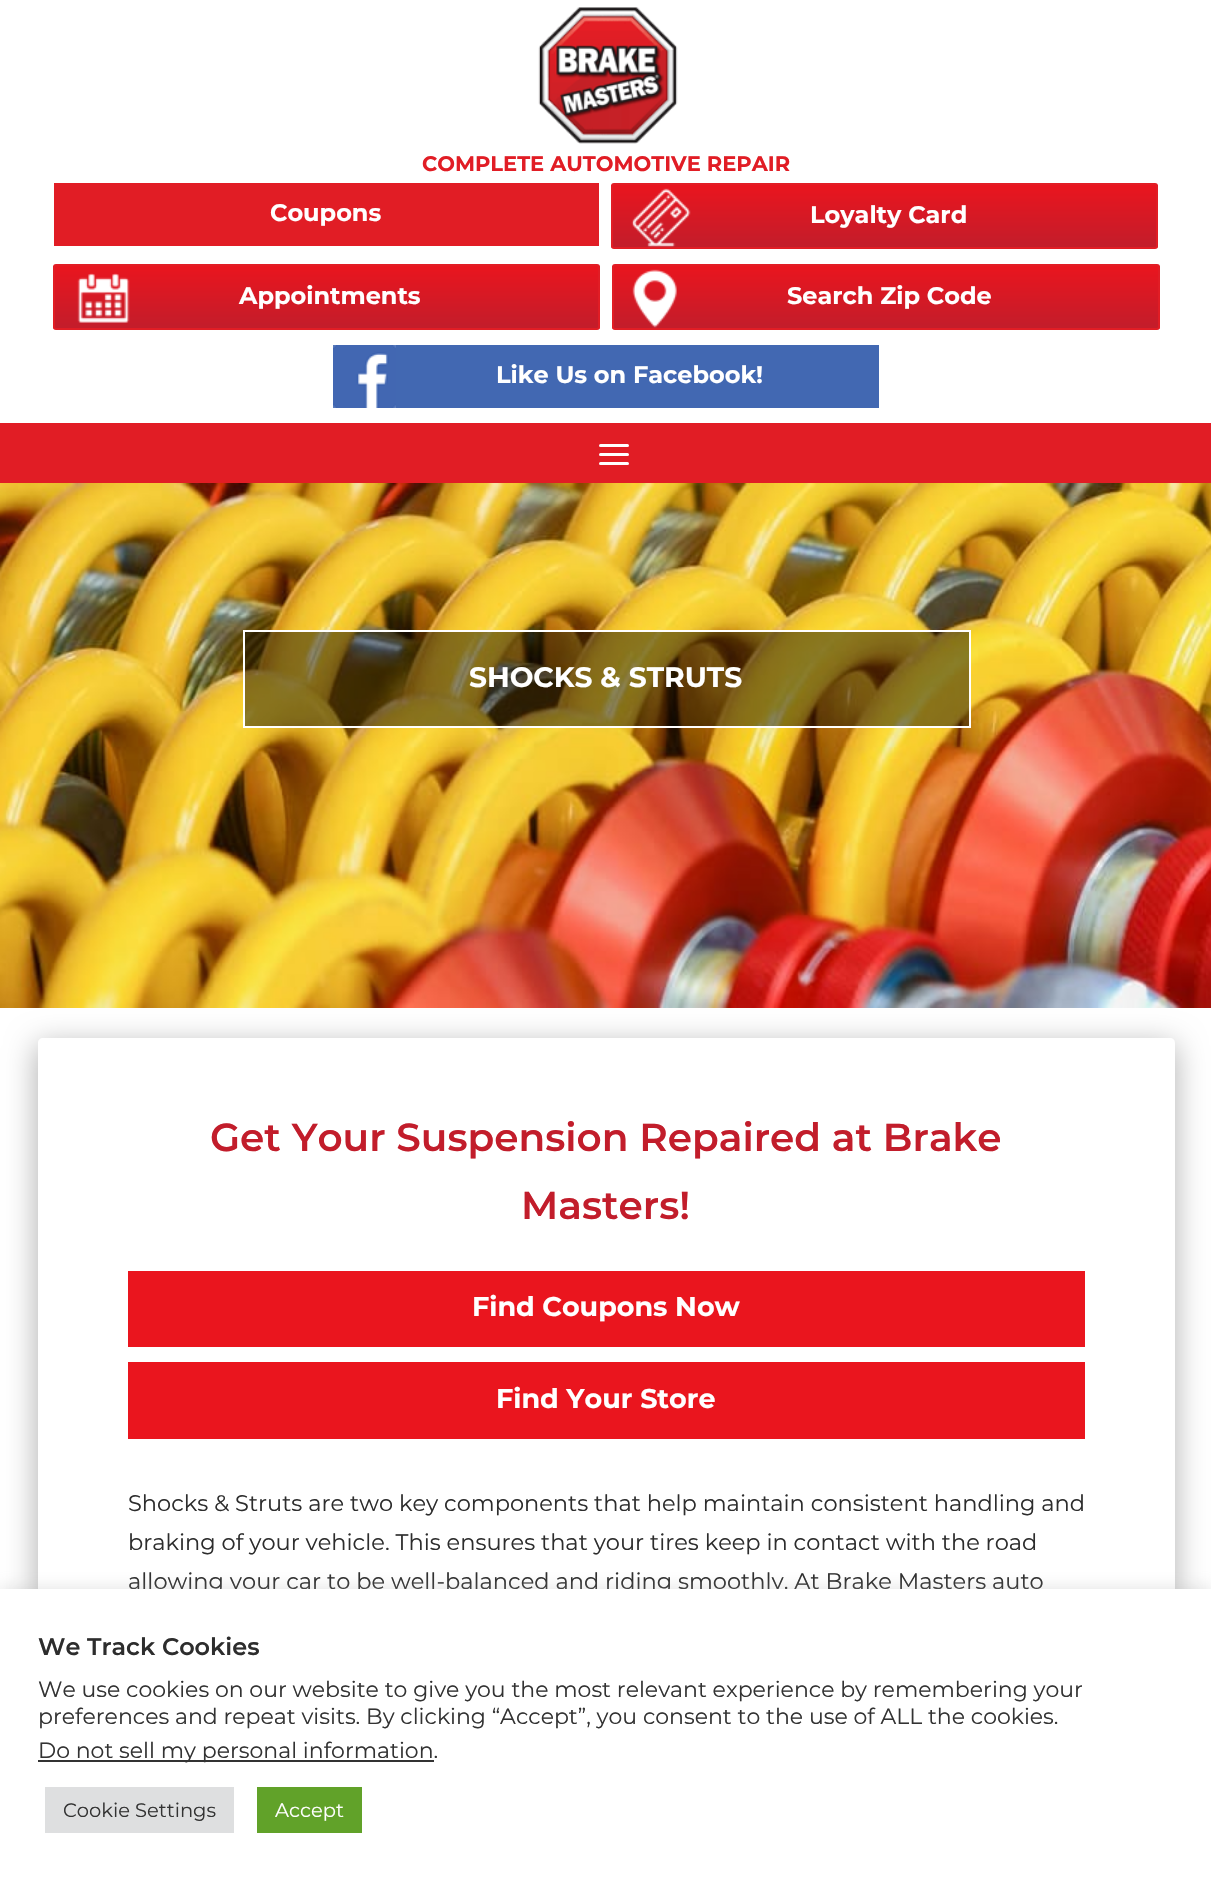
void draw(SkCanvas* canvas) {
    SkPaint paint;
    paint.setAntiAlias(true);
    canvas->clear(0xFFFFFFFF);
    canvas->drawImageRect(SkImages::DeferredFromEncodedData(SkData::MakeFromFileName("img1.png")), SkRect::MakeXYWH(538, 7, 140, 137), SkSamplingOptions());
    SkFont font1(fontMgr->matchFamilyStyle("Montserrat", SkFontStyle::Bold()), 21);
    font1.setSubpixel(true);
    paint.setColor(0xFFE11D25);
    canvas->drawString("COMPLETE AUTOMOTIVE REPAIR", 422, 171, font1, paint);
    canvas->drawRect(SkRect::MakeXYWH(54, 183, 545, 63), paint);
    SkFont font2(fontMgr->matchFamilyStyle("Montserrat", SkFontStyle::Bold()), 24);
    font2.setSubpixel(true);
    paint.setColor(0xFFFFFFFF);
    canvas->drawString("Coupons", 270, 221, font2, paint);
    canvas->save();
    canvas->clipPath(SkPathBuilder().moveTo(614, 183).lineTo(1155, 183).cubicTo(1156.5f, 183, 1158, 184.5f, 1158, 186).lineTo(1158, 246).cubicTo(1158, 247.5f, 1156.5f, 249, 1155, 249).lineTo(614, 249).cubicTo(612.5f, 249, 611, 247.5f, 611, 246).lineTo(611, 186).cubicTo(611, 184.5f, 612.5f, 183, 614, 183).close().detach(), true);
    {
        const SkColor colors[] = {0xFFEA151E, 0xFFC21D2B};
        const float stops[] = {0, 1};
        const SkPoint ends[] = {{884, 184}, {884, 248}};
        paint.setShader(SkGradientShader::MakeLinear(ends, colors, stops, 2, SkTileMode::kClamp));
        paint.setAlpha(255);
    }
    canvas->drawRect(SkRect::MakeXYWH(611, 185, 547, 63), paint);
    canvas->restore();
    paint.setStyle(SkPaint::kStroke_Style);
    paint.setStrokeWidth(2);
    paint.setShader(nullptr);
    paint.setColor(0xFFE11D25);
    canvas->drawRoundRect(SkRect::MakeXYWH(612, 184, 545, 64), 2, 2, paint);
    canvas->drawImageRect(SkImages::DeferredFromEncodedData(SkData::MakeFromFileName("img2.png")), SkRect::MakeXYWH(631, 188, 60, 59), SkSamplingOptions());
    paint.setStyle(SkPaint::kFill_Style);
    paint.setColor(0xFFFFFFFF);
    canvas->drawString("Loyalty Card", 810, 223, font2, paint);
    canvas->save();
    canvas->clipPath(SkPathBuilder().moveTo(56, 264).lineTo(597, 264).cubicTo(598.5f, 264, 600, 265.5f, 600, 267).lineTo(600, 327).cubicTo(600, 328.5f, 598.5f, 330, 597, 330).lineTo(56, 330).cubicTo(54.5f, 330, 53, 328.5f, 53, 327).lineTo(53, 267).cubicTo(53, 265.5f, 54.5f, 264, 56, 264).close().detach(), true);
    {
        const SkColor colors[] = {0xFFEA151E, 0xFFC21D2B};
        const float stops[] = {0, 1};
        const SkPoint ends[] = {{326, 265}, {326, 329}};
        paint.setShader(SkGradientShader::MakeLinear(ends, colors, stops, 2, SkTileMode::kClamp));
        paint.setAlpha(255);
    }
    canvas->drawRect(SkRect::MakeXYWH(53, 266, 547, 63), paint);
    canvas->restore();
    paint.setStyle(SkPaint::kStroke_Style);
    paint.setShader(nullptr);
    paint.setColor(0xFFE11D25);
    canvas->drawRoundRect(SkRect::MakeXYWH(54, 265, 545, 64), 2, 2, paint);
    canvas->drawImageRect(SkImages::DeferredFromEncodedData(SkData::MakeFromFileName("img3.png")), SkRect::MakeXYWH(77, 273, 53, 50), SkSamplingOptions());
    paint.setStyle(SkPaint::kFill_Style);
    paint.setColor(0xFFFFFFFF);
    canvas->drawString("Appointments", 239, 304, font2, paint);
    canvas->save();
    canvas->clipPath(SkPathBuilder().moveTo(615, 264).lineTo(1157, 264).cubicTo(1158.5f, 264, 1160, 265.5f, 1160, 267).lineTo(1160, 327).cubicTo(1160, 328.5f, 1158.5f, 330, 1157, 330).lineTo(615, 330).cubicTo(613.5f, 330, 612, 328.5f, 612, 327).lineTo(612, 267).cubicTo(612, 265.5f, 613.5f, 264, 615, 264).close().detach(), true);
    {
        const SkColor colors[] = {0xFFEA151E, 0xFFC21D2B};
        const float stops[] = {0, 1};
        const SkPoint ends[] = {{886, 265}, {886, 329}};
        paint.setShader(SkGradientShader::MakeLinear(ends, colors, stops, 2, SkTileMode::kClamp));
        paint.setAlpha(255);
    }
    canvas->drawRect(SkRect::MakeXYWH(612, 266, 548, 63), paint);
    canvas->restore();
    paint.setStyle(SkPaint::kStroke_Style);
    paint.setShader(nullptr);
    paint.setColor(0xFFE11D25);
    canvas->drawRoundRect(SkRect::MakeXYWH(613, 265, 546, 64), 2, 2, paint);
    canvas->drawImageRect(SkImages::DeferredFromEncodedData(SkData::MakeFromFileName("img4.png")), SkRect::MakeXYWH(632, 269, 45, 59), SkSamplingOptions());
    paint.setStyle(SkPaint::kFill_Style);
    paint.setColor(0xFFFFFFFF);
    canvas->drawString("Search Zip Code", 787, 304, font2, paint);
    paint.setColor(0xFF4268B2);
    canvas->drawRect(SkRect::MakeXYWH(333, 345, 546, 63), paint);
    canvas->drawImageRect(SkImages::DeferredFromEncodedData(SkData::MakeFromFileName("img5.png")), SkRect::MakeXYWH(333, 345, 63, 63), SkSamplingOptions());
    paint.setColor(0xFFFFFFFF);
    canvas->drawString("Like Us on Facebook!", 496, 383, font2, paint);
    paint.setColor(0xFFE11D25);
    canvas->drawRect(SkRect::MakeXYWH(0, 423, 1211, 60), paint);
    paint.setColor(0xFFFFFFFF);
    canvas->drawRoundRect(SkRect::MakeXYWH(599, 444, 30, 3), 1.5f, 1.5f, paint);
    canvas->drawRoundRect(SkRect::MakeXYWH(599, 453, 30, 3), 1.5f, 1.5f, paint);
    canvas->drawRoundRect(SkRect::MakeXYWH(599, 462, 30, 3), 1.5f, 1.5f, paint);
    canvas->drawImageRect(SkImages::DeferredFromEncodedData(SkData::MakeFromFileName("img6.png")), SkRect::MakeXYWH(0, 483, 1211, 525), SkSamplingOptions());
    paint.setColor(0x73000000);
    canvas->drawRect(SkRect::MakeXYWH(244, 631, 726, 96), paint);
    paint.setStyle(SkPaint::kStroke_Style);
    paint.setColor(0xFFFFFFFF);
    canvas->drawRect(SkRect::MakeXYWH(244, 631, 726, 96), paint);
    SkFont font3(fontMgr->matchFamilyStyle("Montserrat", SkFontStyle::Bold()), 28.1f);
    font3.setSubpixel(true);
    paint.setStyle(SkPaint::kFill_Style);
    canvas->drawString("SHOCKS & STRUTS", 469, 687, font3, paint);
    canvas->save();
    canvas->clipPath(SkPathBuilder(SkPathFillType::kEvenOdd).moveTo(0, 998).lineTo(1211, 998).lineTo(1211, 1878).lineTo(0, 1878).close().moveTo(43, 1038).lineTo(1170, 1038).cubicTo(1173, 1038, 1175, 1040, 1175, 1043).lineTo(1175, 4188).cubicTo(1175, 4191, 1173, 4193, 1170, 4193).lineTo(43, 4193).cubicTo(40, 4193, 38, 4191, 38, 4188).lineTo(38, 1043).cubicTo(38, 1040, 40, 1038, 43, 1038).close().detach(), true);
    paint.setColor(0xFFB3B3B3);
    paint.setMaskFilter(SkMaskFilter::MakeBlur(kNormal_SkBlurStyle, 15));
    canvas->drawRoundRect(SkRect::MakeXYWH(36, 1044, 1140, 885), 6, 6, paint);
    paint.setMaskFilter(nullptr);
    canvas->restore();
    SkFont font4(fontMgr->matchFamilyStyle("Montserrat", SkFontStyle(600, SkFontStyle::kNormal_Width, SkFontStyle::kUpright_Slant)), 39);
    font4.setSubpixel(true);
    paint.setColor(0xFFC21D2B);
    canvas->drawString("Get Your Suspension Repaired at Brake", 210, 1151, font4, paint);
    canvas->drawString("Masters!", 521, 1219, font4, paint);
    paint.setColor(0xFFEA151E);
    canvas->drawRect(SkRect::MakeXYWH(128, 1271, 957, 76), paint);
    SkFont font5(fontMgr->matchFamilyStyle("Montserrat", SkFontStyle::Bold()), 27);
    font5.setSubpixel(true);
    paint.setColor(0xFFFFFFFF);
    canvas->drawString("Find Coupons Now", 472, 1316, font5, paint);
    paint.setColor(0xFFEA151E);
    canvas->drawRect(SkRect::MakeXYWH(128, 1362, 957, 77), paint);
    paint.setColor(0xFFFFFFFF);
    canvas->drawString("Find Your Store", 496, 1408, font5, paint);
    SkFont font6(fontMgr->matchFamilyStyle("Montserrat", SkFontStyle::Normal()), 22.5f);
    font6.setSubpixel(true);
    paint.setColor(0xFF2D2D2D);
    canvas->drawString("Shocks & Struts are two key components that help maintain consistent handling and", 128, 1511, font6, paint);
    canvas->drawString("braking of your vehicle. This ensures that your tires keep in contact with the road", 128, 1550, font6, paint);
    canvas->drawString("allowing your car to be well-balanced and riding smoothly. At Brake Masters auto", 128, 1589, font6, paint);
    paint.setColor(0x4DACABAB);
    paint.setMaskFilter(SkMaskFilter::MakeBlur(kNormal_SkBlurStyle, 7.5f));
    canvas->drawRect(SkRect::MakeXYWH(0, 1587, 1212, 290), paint);
    paint.setMaskFilter(nullptr);
    paint.setColor(0xFFFFFFFF);
    canvas->drawRect(SkRect::MakeXYWH(0, 1589, 1211, 289), paint);
    SkFont font7(fontMgr->matchFamilyStyle("Montserrat", SkFontStyle(600, SkFontStyle::kNormal_Width, SkFontStyle::kUpright_Slant)), 24);
    font7.setSubpixel(true);
    paint.setColor(0xFF2D2D2D);
    canvas->drawString("We Track Cookies", 38, 1655, font7, paint);
    SkFont font8(fontMgr->matchFamilyStyle("Montserrat", SkFontStyle::Normal()), 22);
    font8.setSubpixel(true);
    paint.setColor(0xFF333333);
    canvas->drawString("We use cookies on our website to give you the most relevant experience by remembering your", 38, 1697, font8, paint);
    canvas->drawString("preferences and repeat visits. By clicking “Accept”, you consent to the use of ALL the cookies.", 38, 1724, font8, paint);
    canvas->drawRect(SkRect::MakeXYWH(38, 1760, 396, 2), paint);
    canvas->drawString("Do not sell my personal information.", 38, 1758, font8, paint);
    paint.setColor(0xFFDEDFE0);
    canvas->drawRect(SkRect::MakeXYWH(45, 1787, 189, 46), paint);
    SkFont font9(fontMgr->matchFamilyStyle("Montserrat", SkFontStyle::Normal()), 19.5f);
    font9.setSubpixel(true);
    paint.setColor(0xFF333333);
    canvas->drawString("Cookie Settings", 63, 1817, font9, paint);
    paint.setColor(0xFF61A229);
    canvas->drawRect(SkRect::MakeXYWH(257, 1787, 105, 46), paint);
    paint.setColor(0xFFFFFFFF);
    canvas->drawString("Accept", 275, 1817, font9, paint);
}
